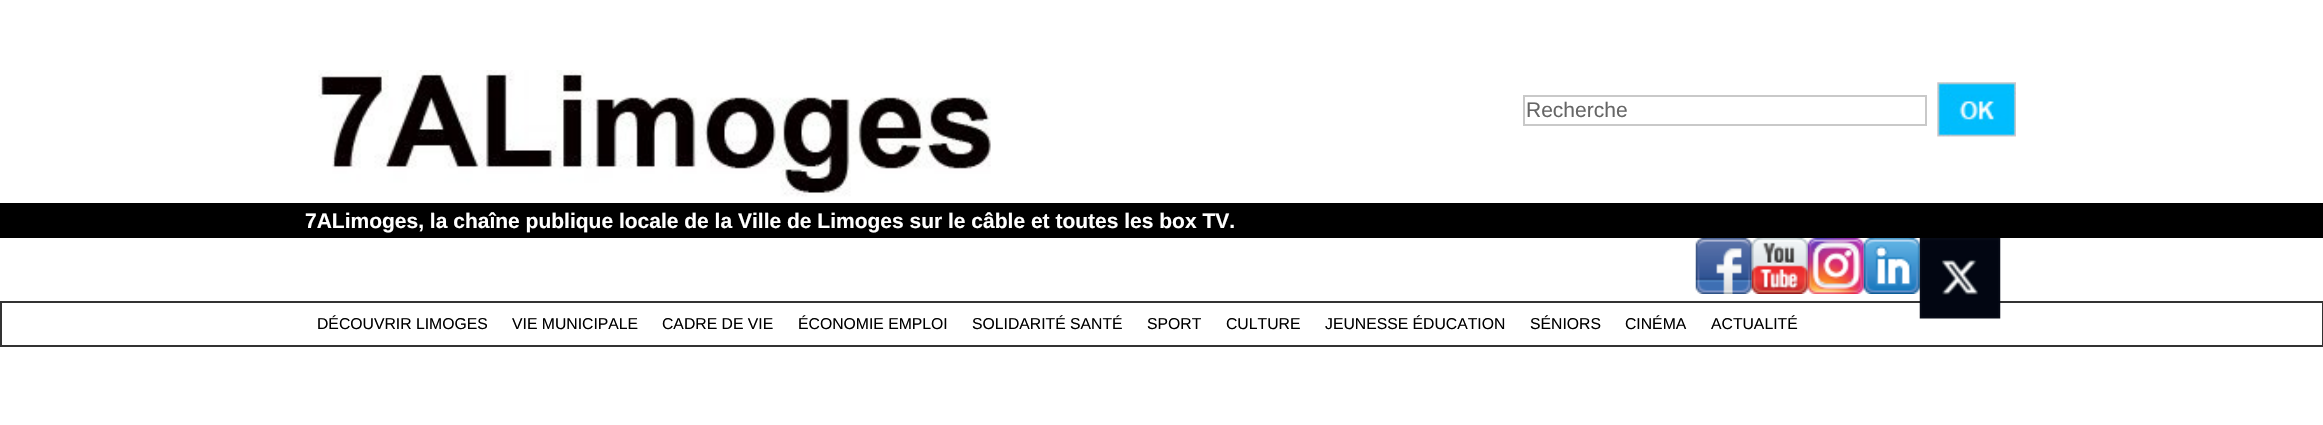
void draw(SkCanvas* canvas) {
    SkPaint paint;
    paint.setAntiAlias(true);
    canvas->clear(0xFFFFFFFF);
    canvas->drawImageRect(SkImages::DeferredFromEncodedData(SkData::MakeFromFileName("img1.png")), SkRect::MakeXYWH(318, 70, 673, 127), SkSamplingOptions());
    paint.setStyle(SkPaint::kStroke_Style);
    paint.setStrokeWidth(2);
    paint.setColor(0xFFC9C9C9);
    canvas->drawRect(SkRect::MakeXYWH(1524, 96, 402, 29), paint);
    SkFont font1(fontMgr->matchFamilyStyle("Liberation Sans", SkFontStyle::Normal()), 21);
    font1.setSubpixel(true);
    paint.setStyle(SkPaint::kFill_Style);
    paint.setColor(0xFF666666);
    canvas->drawString("Recherche", 1526, 117, font1, paint);
    canvas->drawImageRect(SkImages::DeferredFromEncodedData(SkData::MakeFromFileName("img2.png")), SkRect::MakeXYWH(1937, 82, 79, 55), SkSamplingOptions());
    paint.setColor(0xFF000000);
    canvas->drawRect(SkRect::MakeXYWH(0, 203, 2323, 35), paint);
    SkFont font2(fontMgr->matchFamilyStyle("Liberation Sans", SkFontStyle::Bold()), 21);
    font2.setSubpixel(true);
    paint.setColor(0xFFFFFFFF);
    canvas->drawString("7ALimoges, la chaîne publique locale de la Ville de Limoges sur le câble et toutes les box TV.", 305, 228, font2, paint);
    canvas->drawImageRect(SkImages::DeferredFromEncodedData(SkData::MakeFromFileName("img3.png")), SkRect::MakeXYWH(1695, 238, 57, 56), SkSamplingOptions());
    canvas->drawImageRect(SkImages::DeferredFromEncodedData(SkData::MakeFromFileName("img4.png")), SkRect::MakeXYWH(1751, 238, 57, 56), SkSamplingOptions());
    canvas->drawImageRect(SkImages::DeferredFromEncodedData(SkData::MakeFromFileName("img5.png")), SkRect::MakeXYWH(1807, 238, 57, 56), SkSamplingOptions());
    canvas->drawImageRect(SkImages::DeferredFromEncodedData(SkData::MakeFromFileName("img6.png")), SkRect::MakeXYWH(1863, 238, 57, 56), SkSamplingOptions());
    paint.setStyle(SkPaint::kStroke_Style);
    paint.setColor(0xFF333333);
    canvas->drawRect(SkRect::MakeXYWH(1, 302, 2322, 44), paint);
    canvas->drawImageRect(SkImages::DeferredFromEncodedData(SkData::MakeFromFileName("img7.png")), SkRect::MakeXYWH(1919, 238, 82, 81), SkSamplingOptions());
    SkFont font3(fontMgr->matchFamilyStyle("Liberation Sans", SkFontStyle::Normal()), 15.75f);
    font3.setSubpixel(true);
    paint.setStyle(SkPaint::kFill_Style);
    paint.setColor(0xFF000000);
    canvas->drawString("DÉCOUVRIR LIMOGES", 317, 329, font3, paint);
    canvas->drawString("VIE MUNICIPALE", 512, 329, font3, paint);
    canvas->drawString("CADRE DE VIE", 662, 329, font3, paint);
    canvas->drawString("ÉCONOMIE EMPLOI", 798, 329, font3, paint);
    canvas->drawString("SOLIDARITÉ SANTÉ", 972, 329, font3, paint);
    canvas->drawString("SPORT", 1147, 329, font3, paint);
    canvas->drawString("CULTURE", 1226, 329, font3, paint);
    canvas->drawString("JEUNESSE ÉDUCATION", 1325, 329, font3, paint);
    canvas->drawString("SÉNIORS", 1530, 329, font3, paint);
    canvas->drawString("CINÉMA", 1625, 329, font3, paint);
    canvas->drawString("ACTUALITÉ", 1711, 329, font3, paint);
}
